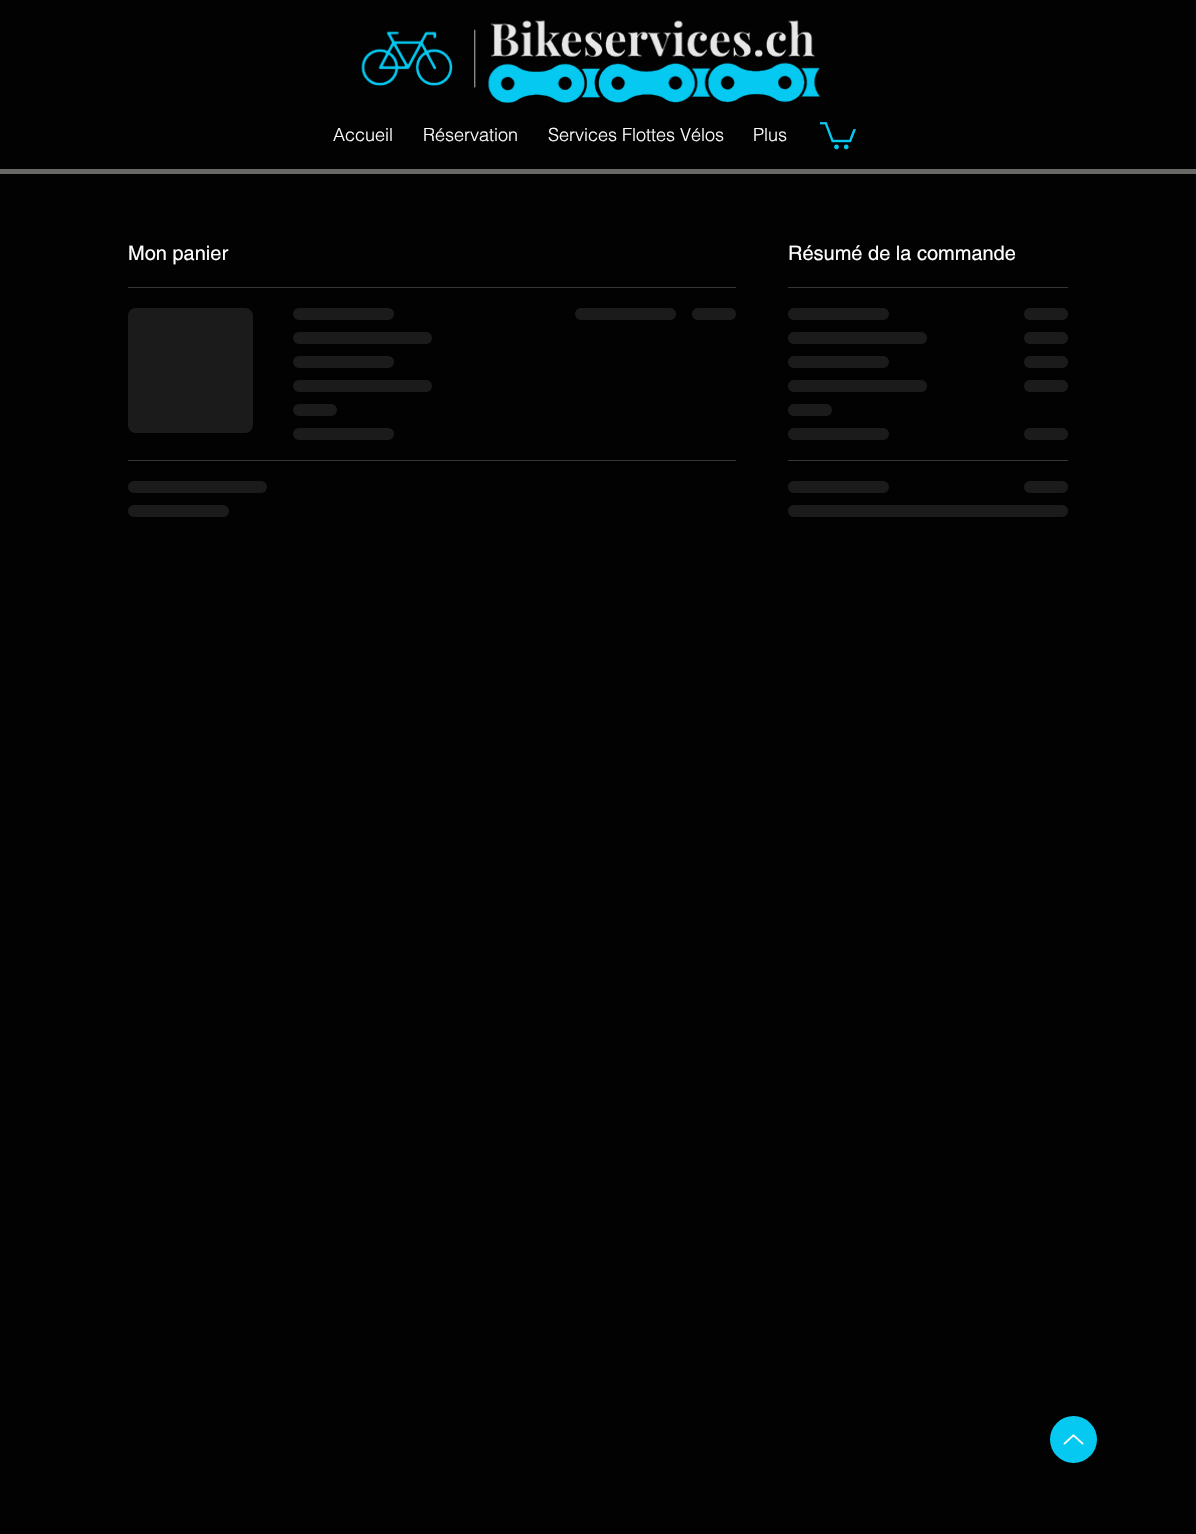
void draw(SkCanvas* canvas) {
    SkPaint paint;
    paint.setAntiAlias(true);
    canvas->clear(0xFF020202);
    canvas->drawImageRect(SkImages::DeferredFromEncodedData(SkData::MakeFromFileName("img1.png")), SkRect::MakeXYWH(361, 20, 460, 83), SkSamplingOptions());
    SkFont font1(fontMgr->matchFamilyStyle("helvetica", SkFontStyle(300, SkFontStyle::kNormal_Width, SkFontStyle::kUpright_Slant)), 18);
    font1.setSubpixel(true);
    paint.setColor(0xFFFFFFFF);
    canvas->drawString("Accueil", 333, 141, font1, paint);
    canvas->drawString("Réservation", 423, 141, font1, paint);
    canvas->drawString("Services Flottes Vélos", 548, 141, font1, paint);
    canvas->drawString("Plus", 753, 141, font1, paint);
    canvas->drawImageRect(SkImages::DeferredFromEncodedData(SkData::MakeFromFileName("img2.png")), SkRect::MakeXYWH(820, 122, 36, 28), SkSamplingOptions());
    paint.setColor(0xFF696968);
    canvas->drawRect(SkRect::MakeXYWH(0, 169, 1196, 5), paint);
    paint.setColor(0xFF353535);
    canvas->drawRect(SkRect::MakeXYWH(128, 287, 608, 1), paint);
    SkFont font2(fontMgr->matchFamilyStyle("helvetica", SkFontStyle::Normal()), 20);
    font2.setSubpixel(true);
    paint.setColor(0xFFFFFFFF);
    canvas->drawString("Mon panier", 128, 260, font2, paint);
    {
        const SkColor colors[] = {0xFF1B1B1B, 0xFF353535, 0xFF1B1B1B};
        const float stops[] = {0.25f, 0.37f, 0.63f};
        const SkPoint ends[] = {{128, 371}, {628, 371}};
        paint.setShader(SkGradientShader::MakeLinear(ends, colors, stops, 3, SkTileMode::kClamp));
        paint.setAlpha(255);
    }
    canvas->drawRoundRect(SkRect::MakeXYWH(128, 308, 125, 125), 8, 8, paint);
    {
        const SkColor colors[] = {0xFF1B1B1B, 0xFF353535, 0xFF1B1B1B};
        const float stops[] = {0.25f, 0.37f, 0.63f};
        const SkPoint ends[] = {{293, 314}, {697, 314}};
        paint.setShader(SkGradientShader::MakeLinear(ends, colors, stops, 3, SkTileMode::kClamp));
        paint.setAlpha(255);
    }
    canvas->drawRoundRect(SkRect::MakeXYWH(293, 308, 101, 12), 6, 6, paint);
    {
        const SkColor colors[] = {0xFF1B1B1B, 0xFF353535, 0xFF1B1B1B};
        const float stops[] = {0.25f, 0.37f, 0.63f};
        const SkPoint ends[] = {{293, 338}, {849, 338}};
        paint.setShader(SkGradientShader::MakeLinear(ends, colors, stops, 3, SkTileMode::kClamp));
        paint.setAlpha(255);
    }
    canvas->drawRoundRect(SkRect::MakeXYWH(293, 332, 139, 12), 6, 6, paint);
    {
        const SkColor colors[] = {0xFF1B1B1B, 0xFF353535, 0xFF1B1B1B};
        const float stops[] = {0.25f, 0.37f, 0.63f};
        const SkPoint ends[] = {{293, 362}, {697, 362}};
        paint.setShader(SkGradientShader::MakeLinear(ends, colors, stops, 3, SkTileMode::kClamp));
        paint.setAlpha(255);
    }
    canvas->drawRoundRect(SkRect::MakeXYWH(293, 356, 101, 12), 6, 6, paint);
    {
        const SkColor colors[] = {0xFF1B1B1B, 0xFF353535, 0xFF1B1B1B};
        const float stops[] = {0.25f, 0.37f, 0.63f};
        const SkPoint ends[] = {{293, 386}, {849, 386}};
        paint.setShader(SkGradientShader::MakeLinear(ends, colors, stops, 3, SkTileMode::kClamp));
        paint.setAlpha(255);
    }
    canvas->drawRoundRect(SkRect::MakeXYWH(293, 380, 139, 12), 6, 6, paint);
    {
        const SkColor colors[] = {0xFF1B1B1B, 0xFF353535, 0xFF1B1B1B};
        const float stops[] = {0.25f, 0.37f, 0.63f};
        const SkPoint ends[] = {{293, 410}, {469, 410}};
        paint.setShader(SkGradientShader::MakeLinear(ends, colors, stops, 3, SkTileMode::kClamp));
        paint.setAlpha(255);
    }
    canvas->drawRoundRect(SkRect::MakeXYWH(293, 404, 44, 12), 6, 6, paint);
    {
        const SkColor colors[] = {0xFF1B1B1B, 0xFF353535, 0xFF1B1B1B};
        const float stops[] = {0.25f, 0.37f, 0.63f};
        const SkPoint ends[] = {{293, 434}, {697, 434}};
        paint.setShader(SkGradientShader::MakeLinear(ends, colors, stops, 3, SkTileMode::kClamp));
        paint.setAlpha(255);
    }
    canvas->drawRoundRect(SkRect::MakeXYWH(293, 428, 101, 12), 6, 6, paint);
    {
        const SkColor colors[] = {0xFF1B1B1B, 0xFF353535, 0xFF1B1B1B};
        const float stops[] = {0.25f, 0.37f, 0.63f};
        const SkPoint ends[] = {{575, 314}, {979, 314}};
        paint.setShader(SkGradientShader::MakeLinear(ends, colors, stops, 3, SkTileMode::kClamp));
        paint.setAlpha(255);
    }
    canvas->drawRoundRect(SkRect::MakeXYWH(575, 308, 101, 12), 6, 6, paint);
    {
        const SkColor colors[] = {0xFF1B1B1B, 0xFF353535, 0xFF1B1B1B};
        const float stops[] = {0.25f, 0.37f, 0.63f};
        const SkPoint ends[] = {{692, 314}, {868, 314}};
        paint.setShader(SkGradientShader::MakeLinear(ends, colors, stops, 3, SkTileMode::kClamp));
        paint.setAlpha(255);
    }
    canvas->drawRoundRect(SkRect::MakeXYWH(692, 308, 44, 12), 6, 6, paint);
    paint.setShader(nullptr);
    paint.setColor(0xFF353535);
    canvas->drawRect(SkRect::MakeXYWH(128, 460, 608, 1), paint);
    {
        const SkColor colors[] = {0xFF1B1B1B, 0xFF353535, 0xFF1B1B1B};
        const float stops[] = {0.25f, 0.37f, 0.63f};
        const SkPoint ends[] = {{128, 487}, {684, 487}};
        paint.setShader(SkGradientShader::MakeLinear(ends, colors, stops, 3, SkTileMode::kClamp));
        paint.setAlpha(255);
    }
    canvas->drawRoundRect(SkRect::MakeXYWH(128, 481, 139, 12), 6, 6, paint);
    {
        const SkColor colors[] = {0xFF1B1B1B, 0xFF353535, 0xFF1B1B1B};
        const float stops[] = {0.25f, 0.37f, 0.63f};
        const SkPoint ends[] = {{128, 511}, {532, 511}};
        paint.setShader(SkGradientShader::MakeLinear(ends, colors, stops, 3, SkTileMode::kClamp));
        paint.setAlpha(255);
    }
    canvas->drawRoundRect(SkRect::MakeXYWH(128, 505, 101, 12), 6, 6, paint);
    paint.setShader(nullptr);
    paint.setColor(0xFF353535);
    canvas->drawRect(SkRect::MakeXYWH(788, 287, 280, 1), paint);
    paint.setColor(0xFFFFFFFF);
    canvas->drawString("Résumé de la commande", 788, 260, font2, paint);
    {
        const SkColor colors[] = {0xFF1B1B1B, 0xFF353535, 0xFF1B1B1B};
        const float stops[] = {0.25f, 0.37f, 0.63f};
        const SkPoint ends[] = {{788, 314}, {1192, 314}};
        paint.setShader(SkGradientShader::MakeLinear(ends, colors, stops, 3, SkTileMode::kClamp));
        paint.setAlpha(255);
    }
    canvas->drawRoundRect(SkRect::MakeXYWH(788, 308, 101, 12), 6, 6, paint);
    {
        const SkColor colors[] = {0xFF1B1B1B, 0xFF353535, 0xFF1B1B1B};
        const float stops[] = {0.25f, 0.37f, 0.63f};
        const SkPoint ends[] = {{1024, 314}, {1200, 314}};
        paint.setShader(SkGradientShader::MakeLinear(ends, colors, stops, 3, SkTileMode::kClamp));
        paint.setAlpha(255);
    }
    canvas->drawRoundRect(SkRect::MakeXYWH(1024, 308, 44, 12), 6, 6, paint);
    {
        const SkColor colors[] = {0xFF1B1B1B, 0xFF353535, 0xFF1B1B1B};
        const float stops[] = {0.25f, 0.37f, 0.63f};
        const SkPoint ends[] = {{788, 338}, {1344, 338}};
        paint.setShader(SkGradientShader::MakeLinear(ends, colors, stops, 3, SkTileMode::kClamp));
        paint.setAlpha(255);
    }
    canvas->drawRoundRect(SkRect::MakeXYWH(788, 332, 139, 12), 6, 6, paint);
    {
        const SkColor colors[] = {0xFF1B1B1B, 0xFF353535, 0xFF1B1B1B};
        const float stops[] = {0.25f, 0.37f, 0.63f};
        const SkPoint ends[] = {{1024, 338}, {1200, 338}};
        paint.setShader(SkGradientShader::MakeLinear(ends, colors, stops, 3, SkTileMode::kClamp));
        paint.setAlpha(255);
    }
    canvas->drawRoundRect(SkRect::MakeXYWH(1024, 332, 44, 12), 6, 6, paint);
    {
        const SkColor colors[] = {0xFF1B1B1B, 0xFF353535, 0xFF1B1B1B};
        const float stops[] = {0.25f, 0.37f, 0.63f};
        const SkPoint ends[] = {{788, 362}, {1192, 362}};
        paint.setShader(SkGradientShader::MakeLinear(ends, colors, stops, 3, SkTileMode::kClamp));
        paint.setAlpha(255);
    }
    canvas->drawRoundRect(SkRect::MakeXYWH(788, 356, 101, 12), 6, 6, paint);
    {
        const SkColor colors[] = {0xFF1B1B1B, 0xFF353535, 0xFF1B1B1B};
        const float stops[] = {0.25f, 0.37f, 0.63f};
        const SkPoint ends[] = {{1024, 362}, {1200, 362}};
        paint.setShader(SkGradientShader::MakeLinear(ends, colors, stops, 3, SkTileMode::kClamp));
        paint.setAlpha(255);
    }
    canvas->drawRoundRect(SkRect::MakeXYWH(1024, 356, 44, 12), 6, 6, paint);
    {
        const SkColor colors[] = {0xFF1B1B1B, 0xFF353535, 0xFF1B1B1B};
        const float stops[] = {0.25f, 0.37f, 0.63f};
        const SkPoint ends[] = {{788, 386}, {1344, 386}};
        paint.setShader(SkGradientShader::MakeLinear(ends, colors, stops, 3, SkTileMode::kClamp));
        paint.setAlpha(255);
    }
    canvas->drawRoundRect(SkRect::MakeXYWH(788, 380, 139, 12), 6, 6, paint);
    {
        const SkColor colors[] = {0xFF1B1B1B, 0xFF353535, 0xFF1B1B1B};
        const float stops[] = {0.25f, 0.37f, 0.63f};
        const SkPoint ends[] = {{1024, 386}, {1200, 386}};
        paint.setShader(SkGradientShader::MakeLinear(ends, colors, stops, 3, SkTileMode::kClamp));
        paint.setAlpha(255);
    }
    canvas->drawRoundRect(SkRect::MakeXYWH(1024, 380, 44, 12), 6, 6, paint);
    {
        const SkColor colors[] = {0xFF1B1B1B, 0xFF353535, 0xFF1B1B1B};
        const float stops[] = {0.25f, 0.37f, 0.63f};
        const SkPoint ends[] = {{788, 410}, {964, 410}};
        paint.setShader(SkGradientShader::MakeLinear(ends, colors, stops, 3, SkTileMode::kClamp));
        paint.setAlpha(255);
    }
    canvas->drawRoundRect(SkRect::MakeXYWH(788, 404, 44, 12), 6, 6, paint);
    {
        const SkColor colors[] = {0xFF1B1B1B, 0xFF353535, 0xFF1B1B1B};
        const float stops[] = {0.25f, 0.37f, 0.63f};
        const SkPoint ends[] = {{788, 434}, {1192, 434}};
        paint.setShader(SkGradientShader::MakeLinear(ends, colors, stops, 3, SkTileMode::kClamp));
        paint.setAlpha(255);
    }
    canvas->drawRoundRect(SkRect::MakeXYWH(788, 428, 101, 12), 6, 6, paint);
    {
        const SkColor colors[] = {0xFF1B1B1B, 0xFF353535, 0xFF1B1B1B};
        const float stops[] = {0.25f, 0.37f, 0.63f};
        const SkPoint ends[] = {{1024, 434}, {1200, 434}};
        paint.setShader(SkGradientShader::MakeLinear(ends, colors, stops, 3, SkTileMode::kClamp));
        paint.setAlpha(255);
    }
    canvas->drawRoundRect(SkRect::MakeXYWH(1024, 428, 44, 12), 6, 6, paint);
    paint.setShader(nullptr);
    paint.setColor(0xFF353535);
    canvas->drawRect(SkRect::MakeXYWH(788, 460, 280, 1), paint);
    {
        const SkColor colors[] = {0xFF1B1B1B, 0xFF353535, 0xFF1B1B1B};
        const float stops[] = {0.25f, 0.37f, 0.63f};
        const SkPoint ends[] = {{788, 487}, {1192, 487}};
        paint.setShader(SkGradientShader::MakeLinear(ends, colors, stops, 3, SkTileMode::kClamp));
        paint.setAlpha(255);
    }
    canvas->drawRoundRect(SkRect::MakeXYWH(788, 481, 101, 12), 6, 6, paint);
    {
        const SkColor colors[] = {0xFF1B1B1B, 0xFF353535, 0xFF1B1B1B};
        const float stops[] = {0.25f, 0.37f, 0.63f};
        const SkPoint ends[] = {{1024, 487}, {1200, 487}};
        paint.setShader(SkGradientShader::MakeLinear(ends, colors, stops, 3, SkTileMode::kClamp));
        paint.setAlpha(255);
    }
    canvas->drawRoundRect(SkRect::MakeXYWH(1024, 481, 44, 12), 6, 6, paint);
    {
        const SkColor colors[] = {0xFF1B1B1B, 0xFF353535, 0xFF1B1B1B};
        const float stops[] = {0.25f, 0.37f, 0.63f};
        const SkPoint ends[] = {{788, 511}, {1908, 511}};
        paint.setShader(SkGradientShader::MakeLinear(ends, colors, stops, 3, SkTileMode::kClamp));
        paint.setAlpha(255);
    }
    canvas->drawRoundRect(SkRect::MakeXYWH(788, 505, 280, 12), 6, 6, paint);
    paint.setShader(nullptr);
    paint.setColor(0xFF05C9F0);
    canvas->drawCircle(1073.5f, 1439.5f, 23.5f, paint);
    canvas->drawImageRect(SkImages::DeferredFromEncodedData(SkData::MakeFromFileName("img3.png")), SkRect::MakeXYWH(1063, 1434, 21, 11), SkSamplingOptions());
}
